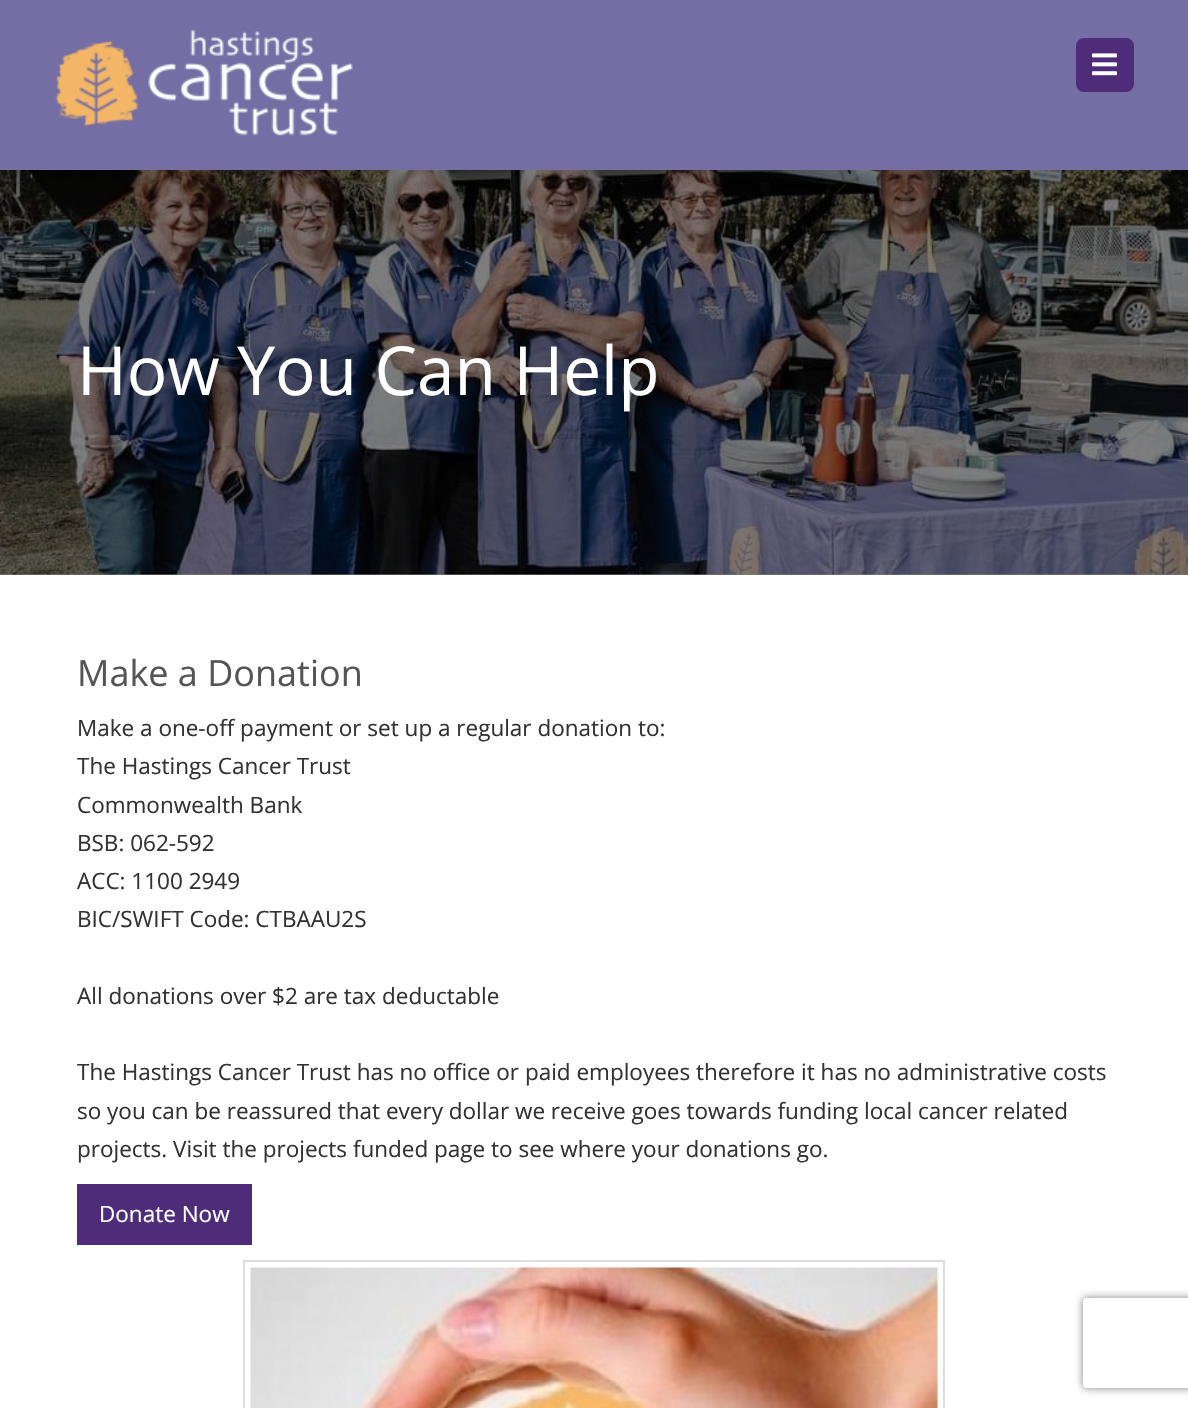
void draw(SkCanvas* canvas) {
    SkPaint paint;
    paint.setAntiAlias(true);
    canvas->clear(0xFFFFFFFF);
    paint.setColor(0xFF808080);
    canvas->drawRect(SkRect::MakeXYWH(0, 574, 1188, 1), paint);
    paint.setColor(0xFF746EA5);
    canvas->drawRect(SkRect::MakeXYWH(0, 0, 1188, 170), paint);
    canvas->drawImageRect(SkImages::DeferredFromEncodedData(SkData::MakeFromFileName("img1.png")), SkRect::MakeXYWH(55, 30, 298, 106), SkSamplingOptions());
    paint.setColor(0xFF4E2C79);
    canvas->drawRoundRect(SkRect::MakeXYWH(1077, 39, 56, 52), 7, 7, paint);
    paint.setStyle(SkPaint::kStroke_Style);
    paint.setStrokeWidth(2);
    canvas->drawRoundRect(SkRect::MakeXYWH(1077, 39, 56, 52), 7, 7, paint);
    canvas->drawImageRect(SkImages::DeferredFromEncodedData(SkData::MakeFromFileName("img2.png")), SkRect::MakeXYWH(1092, 53, 25, 23), SkSamplingOptions());
    canvas->drawImageRect(SkImages::DeferredFromEncodedData(SkData::MakeFromFileName("img3.png")), SkRect::MakeXYWH(0, 170, 1188, 405), SkSamplingOptions());
    SkFont font1(fontMgr->matchFamilyStyle("Open Sans", SkFontStyle::Normal()), 67.5f);
    font1.setSubpixel(true);
    paint.setStyle(SkPaint::kFill_Style);
    paint.setColor(0xFFFFFFFF);
    canvas->drawString("How You Can Help", 77, 395, font1, paint);
    SkFont font2(fontMgr->matchFamilyStyle("Open Sans", SkFontStyle::Normal()), 36);
    font2.setSubpixel(true);
    paint.setColor(0xFF555555);
    canvas->drawString("Make a Donation", 77, 686, font2, paint);
    SkFont font3(fontMgr->matchFamilyStyle("Open Sans", SkFontStyle::Normal()), 22.5f);
    font3.setSubpixel(true);
    paint.setColor(0xFF333333);
    canvas->drawString("Make a one-off payment or set up a regular donation to:", 77, 736, font3, paint);
    canvas->drawString("The Hastings Cancer Trust", 77, 774, font3, paint);
    canvas->drawString("Commonwealth Bank", 77, 813, font3, paint);
    canvas->drawString("BSB: 062-592", 77, 851, font3, paint);
    canvas->drawString("ACC: 1100 2949", 77, 889, font3, paint);
    canvas->drawString("BIC/SWIFT Code: CTBAAU2S", 77, 927, font3, paint);
    canvas->drawString("All donations over $2 are tax deductable", 77, 1004, font3, paint);
    canvas->drawString("The Hastings Cancer Trust has no office or paid employees therefore it has no administrative costs", 77, 1080, font3, paint);
    canvas->drawString("so you can be reassured that every dollar we receive goes towards funding local cancer related", 77, 1119, font3, paint);
    canvas->drawString("projects. Visit the projects funded page to see where your donations go.", 77, 1157, font3, paint);
    paint.setColor(0xFF4E2C79);
    canvas->drawRect(SkRect::MakeXYWH(77, 1184, 175, 61), paint);
    paint.setColor(0xFFFFFFFF);
    canvas->drawString("Donate Now", 99, 1222, font3, paint);
    paint.setStyle(SkPaint::kStroke_Style);
    paint.setColor(0xFFDDDDDD);
    canvas->drawRect(SkRect::MakeXYWH(244, 1261, 700, 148), paint);
    canvas->drawImageRect(SkImages::DeferredFromEncodedData(SkData::MakeFromFileName("img4.png")), SkRect::MakeXYWH(250, 1267, 688, 141), SkSamplingOptions());
    canvas->save();
    canvas->clipPath(SkPathBuilder(SkPathFillType::kEvenOdd).moveTo(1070, 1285).lineTo(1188, 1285).lineTo(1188, 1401).lineTo(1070, 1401).close().moveTo(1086, 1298).lineTo(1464, 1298).cubicTo(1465.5f, 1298, 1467, 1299.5f, 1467, 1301).lineTo(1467, 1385).cubicTo(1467, 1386.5f, 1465.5f, 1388, 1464, 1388).lineTo(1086, 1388).cubicTo(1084.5f, 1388, 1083, 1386.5f, 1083, 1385).lineTo(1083, 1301).cubicTo(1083, 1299.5f, 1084.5f, 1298, 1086, 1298).close().detach(), true);
    paint.setStyle(SkPaint::kFill_Style);
    paint.setColor(0xFF808080);
    paint.setMaskFilter(SkMaskFilter::MakeBlur(kNormal_SkBlurStyle, 4));
    canvas->drawRoundRect(SkRect::MakeXYWH(1083, 1298, 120, 90), 3, 3, paint);
    paint.setMaskFilter(nullptr);
    canvas->restore();
}
